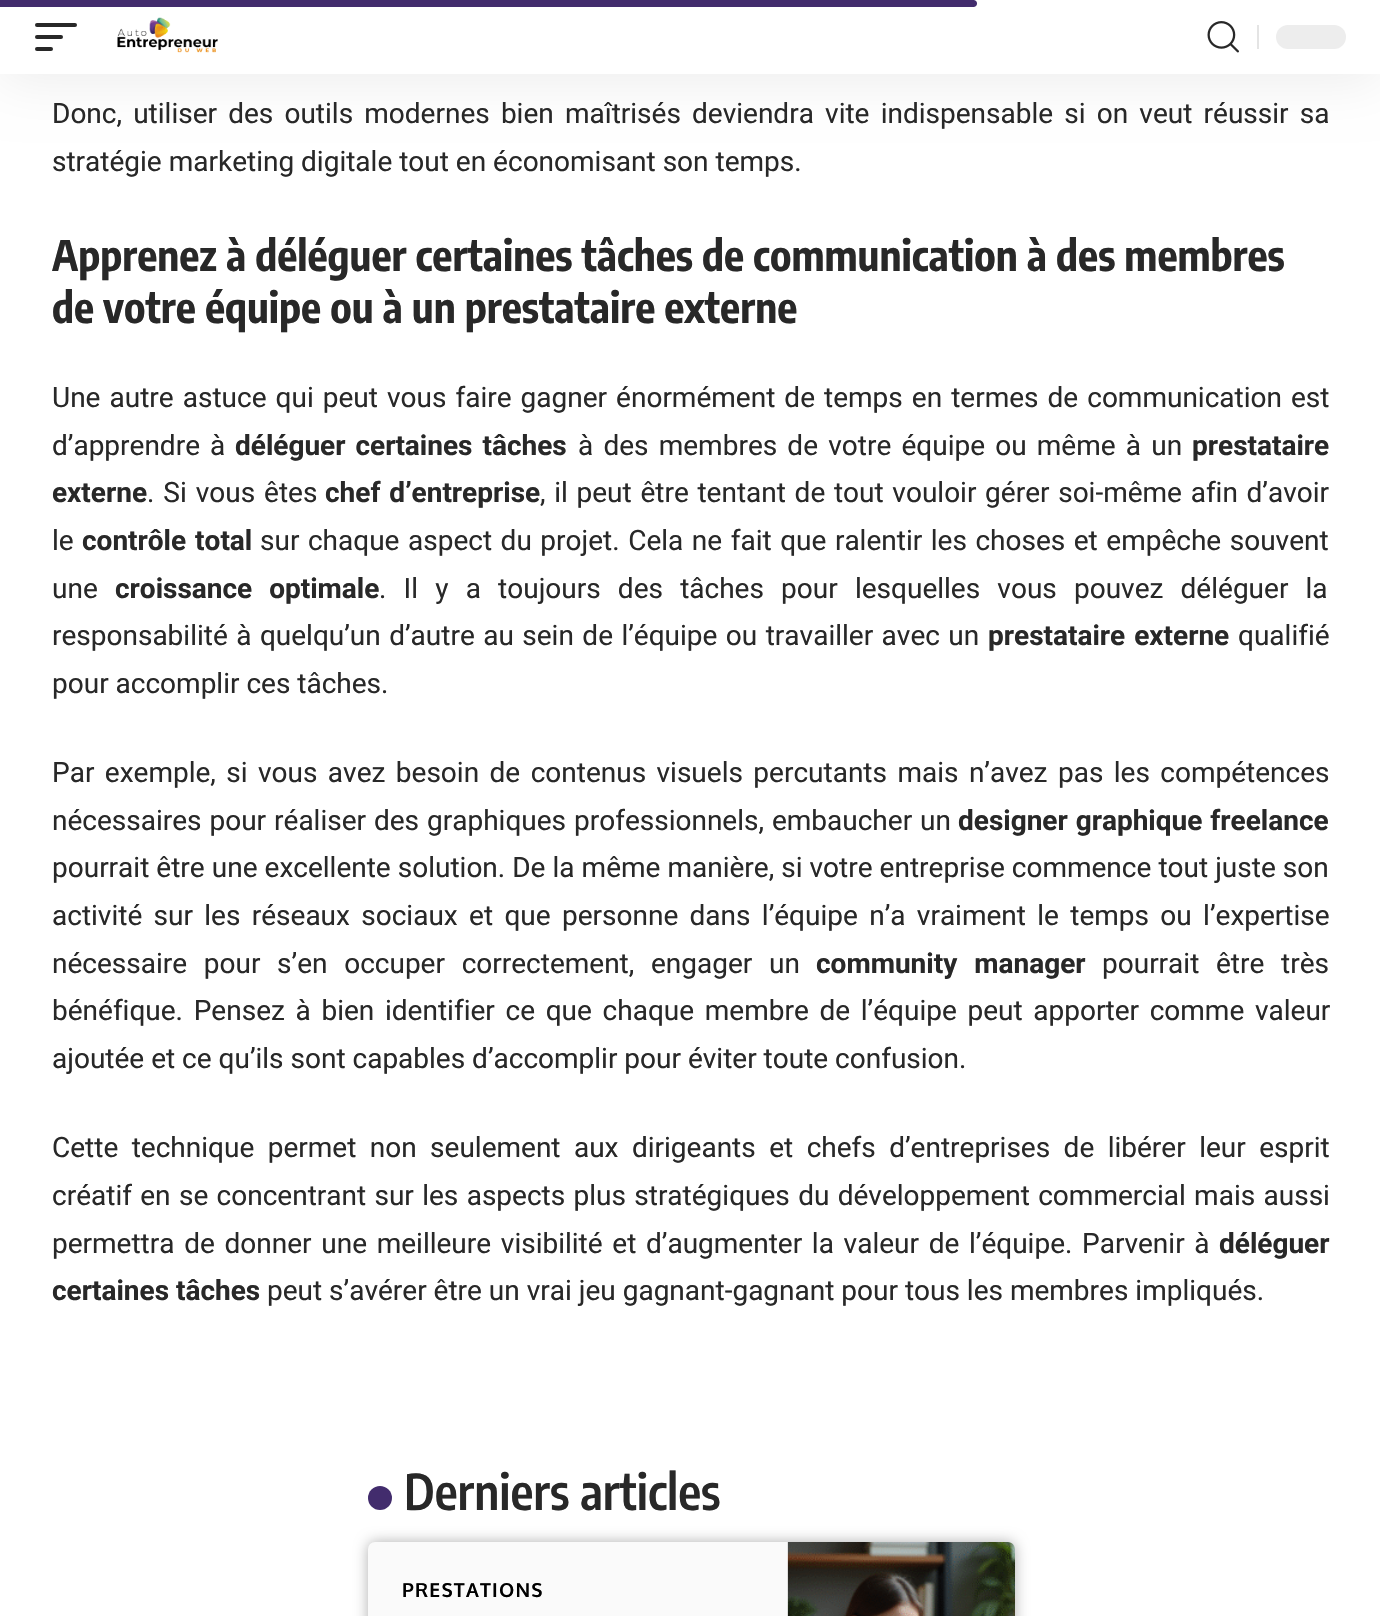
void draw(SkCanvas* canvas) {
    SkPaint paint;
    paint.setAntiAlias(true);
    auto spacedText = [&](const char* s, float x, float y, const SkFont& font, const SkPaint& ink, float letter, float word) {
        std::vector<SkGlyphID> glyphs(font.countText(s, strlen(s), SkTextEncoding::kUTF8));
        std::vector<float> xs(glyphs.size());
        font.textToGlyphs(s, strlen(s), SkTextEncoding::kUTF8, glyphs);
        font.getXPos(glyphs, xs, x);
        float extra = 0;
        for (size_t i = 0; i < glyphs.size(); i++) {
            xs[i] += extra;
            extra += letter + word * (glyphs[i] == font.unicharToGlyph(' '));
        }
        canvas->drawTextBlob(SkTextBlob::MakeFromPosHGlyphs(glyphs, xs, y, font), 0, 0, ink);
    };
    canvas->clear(0xFFFFFFFF);
    paint.setColor(0x12000000);
    paint.setMaskFilter(SkMaskFilter::MakeBlur(kNormal_SkBlurStyle, 26));
    canvas->drawRect(SkRect::MakeXYWH(0, 7, 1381, 74), paint);
    paint.setMaskFilter(nullptr);
    paint.setColor(0xFFFFFFFF);
    canvas->drawRect(SkRect::MakeXYWH(0, 0, 1380, 74), paint);
    paint.setColor(0xFF282828);
    canvas->drawRoundRect(SkRect::MakeXYWH(35, 23, 42, 4), 2, 2, paint);
    canvas->drawRoundRect(SkRect::MakeXYWH(35, 35, 28, 4), 2, 2, paint);
    canvas->drawRoundRect(SkRect::MakeXYWH(35, 47, 18, 4), 2, 2, paint);
    canvas->drawImageRect(SkImages::DeferredFromEncodedData(SkData::MakeFromFileName("img1.png")), SkRect::MakeXYWH(117, 17, 101, 36), SkSamplingOptions());
    canvas->drawImageRect(SkImages::DeferredFromEncodedData(SkData::MakeFromFileName("img2.png")), SkRect::MakeXYWH(1207, 21, 32, 32), SkSamplingOptions());
    paint.setColor(0xFFE4E4E4);
    canvas->drawRect(SkRect::MakeXYWH(1257, 25, 2, 24), paint);
    paint.setColor(0xFFEDEDED);
    canvas->drawRoundRect(SkRect::MakeXYWH(1276, 25, 70, 24), 12, 12, paint);
    paint.setColor(0xFF422C6D);
    canvas->drawPath(SkPathBuilder().moveTo(0, 0).lineTo(973.5f, 0).cubicTo(975.5f, 0, 977, 1.5f, 977, 3.5f).cubicTo(977, 5.5f, 975.5f, 7, 973.5f, 7).lineTo(0, 7).close().detach(), paint);
    SkFont font1(fontMgr->matchFamilyStyle("Roboto", SkFontStyle::Normal()), 28);
    font1.setSubpixel(true);
    paint.setColor(0xFF282828);
    spacedText("Donc, utiliser des outils modernes bien maîtrisés deviendra vite indispensable si on veut réussir sa", 52, 123, font1, paint, 0, 4.25f);
    canvas->drawString("stratégie marketing digitale tout en économisant son temps.", 52, 171, font1, paint);
    SkFont font2(fontMgr->matchFamilyStyle("Encode Sans Condensed", SkFontStyle::Bold()), 42);
    font2.setSubpixel(true);
    canvas->drawString("Apprenez à déléguer certaines tâches de communication à des membres", 52, 271, font2, paint);
    canvas->drawString("de votre équipe ou à un prestataire externe", 52, 323, font2, paint);
    spacedText("Une autre astuce qui peut vous faire gagner énormément de temps en termes de communication est", 52, 407, font1, paint, 0, 2.1f);
    spacedText("d’apprendre à", 52, 455, font1, paint, 0, 3);
    SkFont font3(fontMgr->matchFamilyStyle("Roboto", SkFontStyle::Bold()), 28);
    font3.setSubpixel(true);
    spacedText("déléguer certaines tâches", 235, 455, font3, paint, 0, 3);
    spacedText("à des membres de votre équipe ou même à un", 578, 455, font1, paint, 0, 3.25f);
    canvas->drawString("prestataire", 1192, 455, font3, paint);
    canvas->drawString("externe", 52, 502, font3, paint);
    spacedText(". Si vous êtes", 147, 502, font1, paint, 0, 2);
    spacedText("chef d’entreprise", 325, 502, font3, paint, 0, 2);
    spacedText(", il peut être tentant de tout vouloir gérer soi-même afin d’avoir", 540, 502, font1, paint, 0, 1.75f);
    canvas->drawString("le", 52, 550, font1, paint);
    spacedText("contrôle total", 82, 550, font3, paint, 0, 2);
    spacedText("sur chaque aspect du projet. Cela ne fait que ralentir les choses et empêche souvent", 260, 550, font1, paint, 0, 1.6f);
    canvas->drawString("une", 52, 598, font1, paint);
    spacedText("croissance optimale", 115, 598, font3, paint, 0, 10);
    spacedText(". Il y a toujours des tâches pour lesquelles vous pouvez déléguer la", 379, 598, font1, paint, 0, 10.25f);
    spacedText("responsabilité à quelqu’un d’autre au sein de l’équipe ou travailler avec un", 52, 645, font1, paint, 0, 1.5f);
    spacedText("prestataire externe", 988, 645, font3, paint, 0, 2);
    canvas->drawString("qualifié", 1238, 645, font1, paint);
    canvas->drawString("pour accomplir ces tâches.", 52, 693, font1, paint);
    spacedText("Par exemple, si vous avez besoin de contenus visuels percutants mais n’avez pas les compétences", 52, 782, font1, paint, 0, 3.5f);
    spacedText("nécessaires pour réaliser des graphiques professionnels, embaucher un", 52, 830, font1, paint, 0, 1);
    spacedText("designer graphique freelance", 958, 830, font3, paint, 0, 1);
    spacedText("pourrait être une excellente solution. De la même manière, si votre entreprise commence tout juste son", 52, 877, font1, paint, 0, 0.1f);
    spacedText("activité sur les réseaux sociaux et que personne dans l’équipe n’a vraiment le temps ou l’expertise", 52, 925, font1, paint, 0, 4.4f);
    spacedText("nécessaire pour s’en occuper correctement, engager un", 52, 973, font1, paint, 0, 9.75f);
    spacedText("community manager", 816, 973, font3, paint, 0, 10);
    spacedText("pourrait être très", 1102, 973, font1, paint, 0, 9.75f);
    spacedText("bénéfique. Pensez à bien identifier ce que chaque membre de l’équipe peut apporter comme valeur", 52, 1020, font1, paint, 0, 3.75f);
    canvas->drawString("ajoutée et ce qu’ils sont capables d’accomplir pour éviter toute confusion.", 52, 1068, font1, paint);
    spacedText("Cette technique permet non seulement aux dirigeants et chefs d’entreprises de libérer leur esprit", 52, 1157, font1, paint, 0, 6.5f);
    spacedText("créatif en se concentrant sur les aspects plus stratégiques du développement commercial mais aussi", 52, 1205, font1, paint, 0, 1.4f);
    spacedText("permettra de donner une meilleure visibilité et d’augmenter la valeur de l’équipe. Parvenir à", 52, 1253, font1, paint, 0, 2.75f);
    canvas->drawString("déléguer", 1219, 1253, font3, paint);
    canvas->drawString("certaines tâches", 52, 1300, font3, paint);
    canvas->drawString("peut s’avérer être un vrai jeu gagnant-gagnant pour tous les membres impliqués.", 267, 1300, font1, paint);
    paint.setColor(0xFF422C6D);
    canvas->drawCircle(380, 1498, 12, paint);
    SkFont font4(fontMgr->matchFamilyStyle("Encode Sans Condensed", SkFontStyle(600, SkFontStyle::kNormal_Width, SkFontStyle::kUpright_Slant)), 49);
    font4.setSubpixel(true);
    paint.setColor(0xFF282828);
    canvas->drawString("Derniers articles", 404, 1510, font4, paint);
    paint.setColor(0x4F000000);
    paint.setMaskFilter(SkMaskFilter::MakeBlur(kNormal_SkBlurStyle, 7));
    canvas->drawRoundRect(SkRect::MakeXYWH(368, 1542, 647, 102), 7, 7, paint);
    paint.setMaskFilter(nullptr);
    paint.setColor(0xFFFAFAFA);
    canvas->drawRoundRect(SkRect::MakeXYWH(368, 1542, 647, 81), 7, 7, paint);
    SkFont font5(fontMgr->matchFamilyStyle("Oxygen", SkFontStyle::Bold()), 19.25f);
    font5.setSubpixel(true);
    paint.setColor(0xFF000000);
    spacedText("PRESTATIONS", 402, 1597, font5, paint, 1.25f, 0);
    canvas->drawImageRect(SkImages::DeferredFromEncodedData(SkData::MakeFromFileName("img3.png")), SkRect::MakeXYWH(787, 1542, 228, 74), SkSamplingOptions());
}
